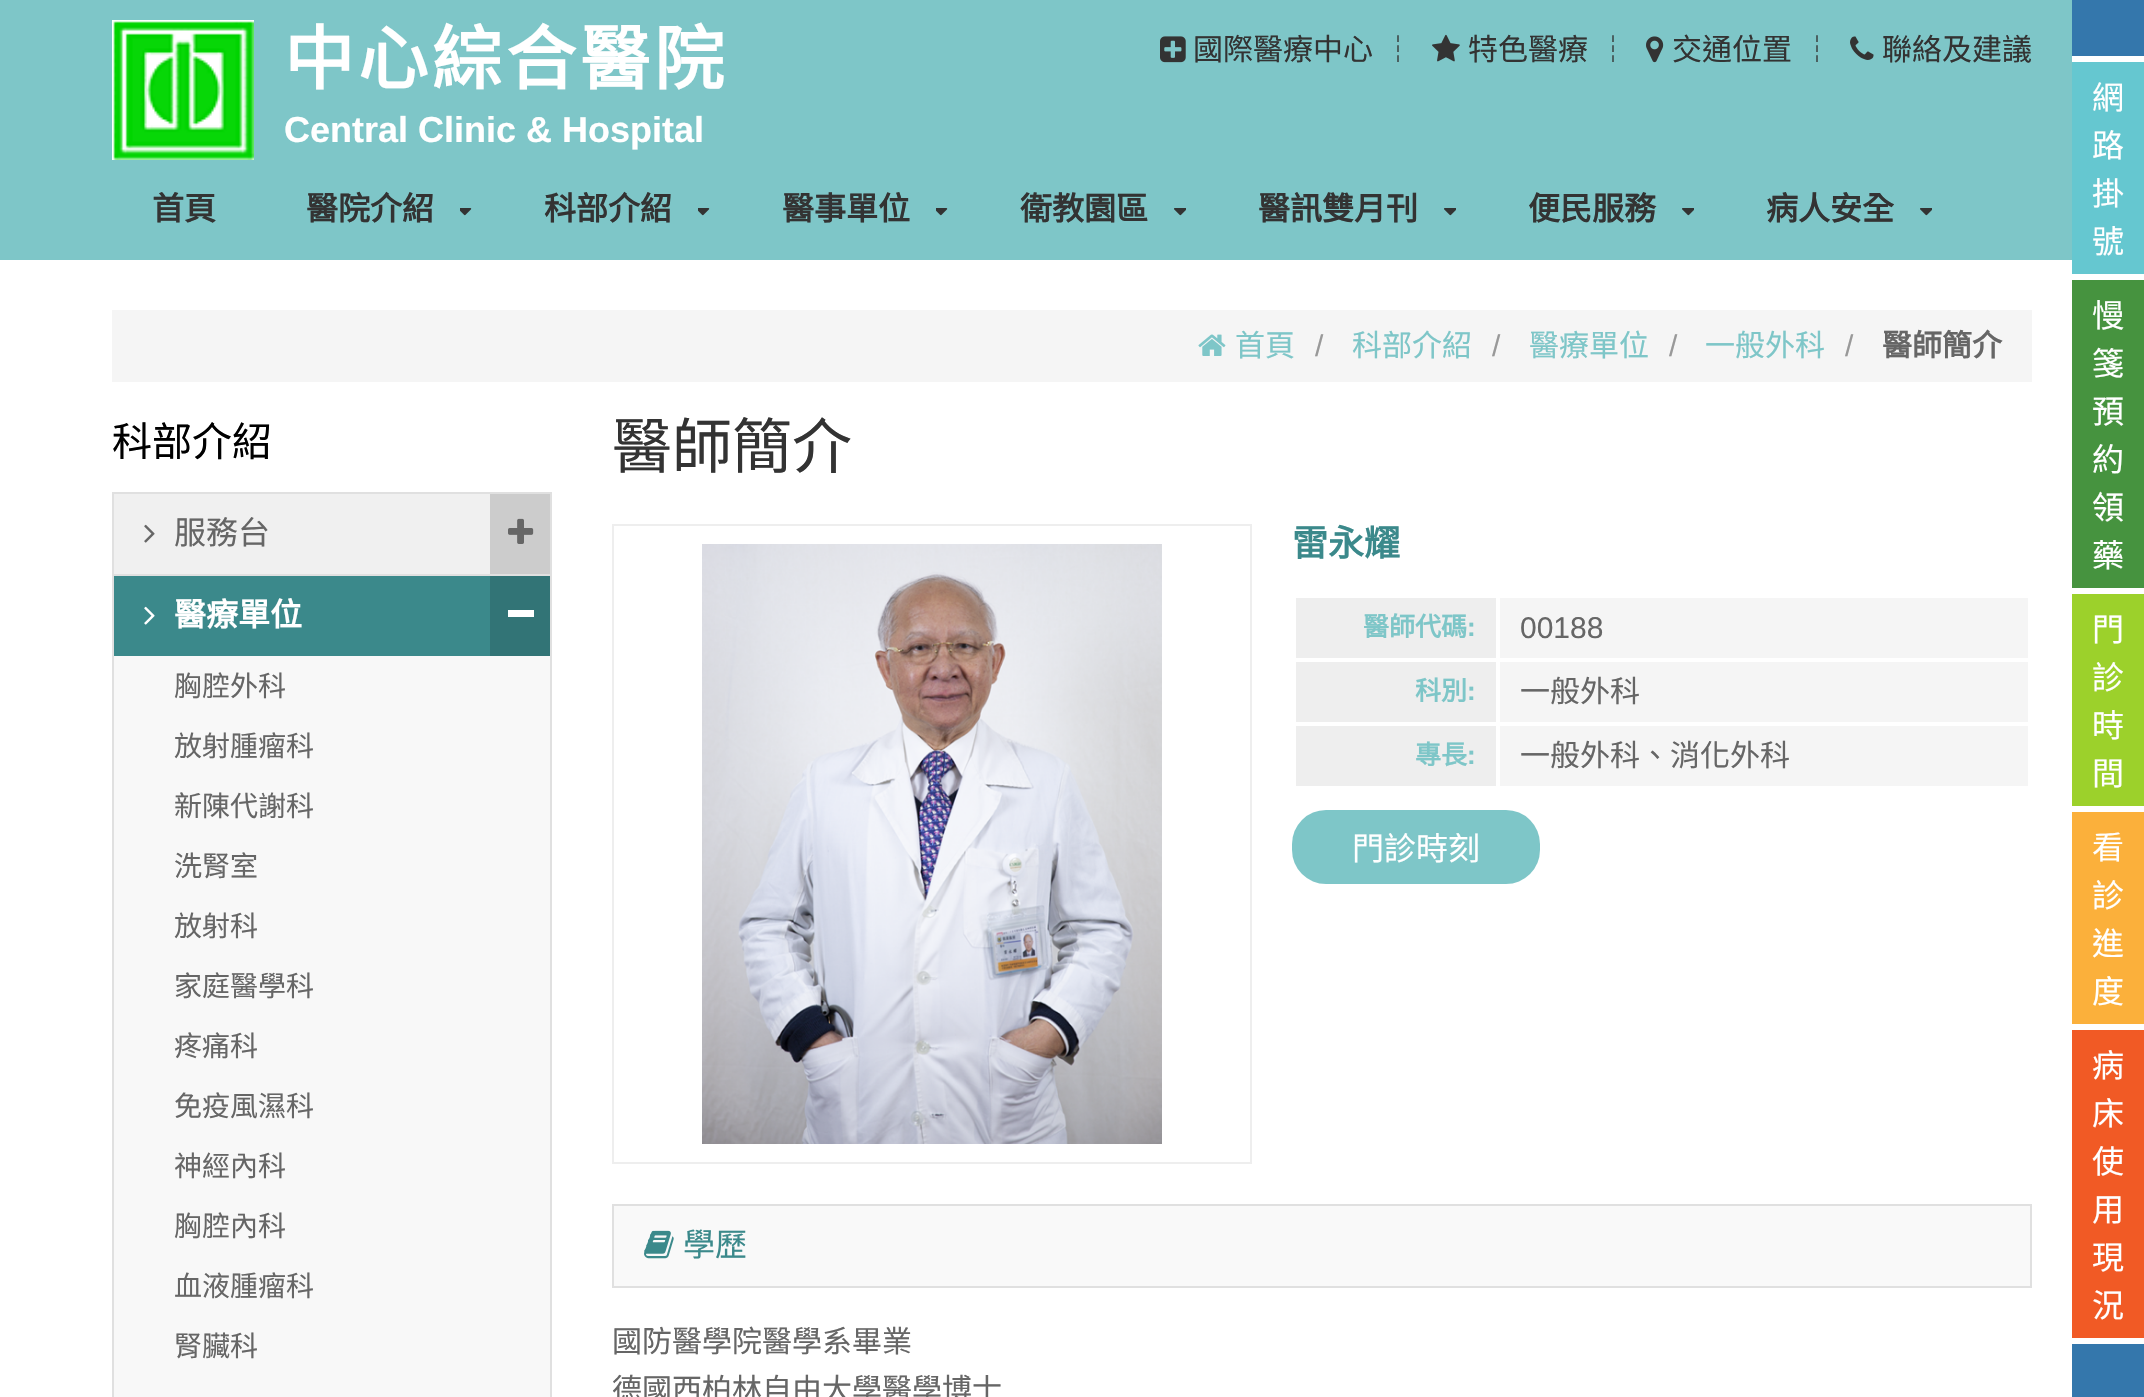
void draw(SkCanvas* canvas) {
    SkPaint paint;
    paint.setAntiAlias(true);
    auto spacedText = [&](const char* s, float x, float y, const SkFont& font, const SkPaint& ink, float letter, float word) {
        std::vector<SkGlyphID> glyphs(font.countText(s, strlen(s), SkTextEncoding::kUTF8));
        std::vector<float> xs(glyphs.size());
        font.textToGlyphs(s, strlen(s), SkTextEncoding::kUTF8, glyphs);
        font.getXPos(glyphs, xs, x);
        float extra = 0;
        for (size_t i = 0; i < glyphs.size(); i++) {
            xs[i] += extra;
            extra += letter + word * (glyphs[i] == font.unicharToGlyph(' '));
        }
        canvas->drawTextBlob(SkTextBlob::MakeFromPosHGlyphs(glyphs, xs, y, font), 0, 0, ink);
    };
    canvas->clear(0xFFFFFFFF);
    paint.setColor(0xFF7EC6C8);
    canvas->drawRect(SkRect::MakeXYWH(0, 0, 2072, 260), paint);
    canvas->drawImageRect(SkImages::DeferredFromEncodedData(SkData::MakeFromFileName("img1.png")), SkRect::MakeXYWH(112, 20, 142, 140), SkSamplingOptions());
    SkFont font1(fontMgr->matchFamilyStyle("Noto Sans CJK TC", SkFontStyle::Bold()), 70);
    font1.setSubpixel(true);
    paint.setColor(0xFFFFFFFF);
    spacedText("中心綜合醫院", 284, 84, font1, paint, 4, 0);
    SkFont font2(fontMgr->matchFamilyStyle("Liberation Sans", SkFontStyle::Bold()), 36);
    font2.setSubpixel(true);
    canvas->drawString("Central Clinic & Hospital", 284, 142, font2, paint);
    canvas->drawImageRect(SkImages::DeferredFromEncodedData(SkData::MakeFromFileName("img2.png")), SkRect::MakeXYWH(1160, 36, 26, 27), SkSamplingOptions());
    SkFont font3(fontMgr->matchFamilyStyle("Noto Sans CJK TC", SkFontStyle::Normal()), 30);
    font3.setSubpixel(true);
    paint.setColor(0xFF333333);
    canvas->drawString("國際醫療中心", 1193, 60, font3, paint);
    canvas->drawString("┆", 1383, 60, font3, paint);
    canvas->drawImageRect(SkImages::DeferredFromEncodedData(SkData::MakeFromFileName("img3.png")), SkRect::MakeXYWH(1432, 34, 28, 28), SkSamplingOptions());
    canvas->drawString("特色醫療", 1468, 60, font3, paint);
    canvas->drawString("┆", 1598, 60, font3, paint);
    canvas->drawImageRect(SkImages::DeferredFromEncodedData(SkData::MakeFromFileName("img4.png")), SkRect::MakeXYWH(1646, 36, 18, 27), SkSamplingOptions());
    canvas->drawString("交通位置", 1672, 60, font3, paint);
    canvas->drawString("┆", 1802, 60, font3, paint);
    canvas->drawImageRect(SkImages::DeferredFromEncodedData(SkData::MakeFromFileName("img5.png")), SkRect::MakeXYWH(1850, 36, 24, 24), SkSamplingOptions());
    canvas->drawString("聯絡及建議", 1882, 60, font3, paint);
    SkFont font4(fontMgr->matchFamilyStyle("Noto Sans CJK TC", SkFontStyle::Bold()), 32);
    font4.setSubpixel(true);
    canvas->drawString("首頁", 152, 220, font4, paint);
    canvas->drawString("醫院介紹", 306, 220, font4, paint);
    canvas->drawImageRect(SkImages::DeferredFromEncodedData(SkData::MakeFromFileName("img6.png")), SkRect::MakeXYWH(460, 208, 12, 8), SkSamplingOptions());
    canvas->drawString("科部介紹", 544, 220, font4, paint);
    canvas->drawImageRect(SkImages::DeferredFromEncodedData(SkData::MakeFromFileName("img7.png")), SkRect::MakeXYWH(698, 208, 12, 8), SkSamplingOptions());
    canvas->drawString("醫事單位", 782, 220, font4, paint);
    canvas->drawImageRect(SkImages::DeferredFromEncodedData(SkData::MakeFromFileName("img8.png")), SkRect::MakeXYWH(936, 208, 12, 8), SkSamplingOptions());
    canvas->drawString("衛教園區", 1020, 220, font4, paint);
    canvas->drawImageRect(SkImages::DeferredFromEncodedData(SkData::MakeFromFileName("img9.png")), SkRect::MakeXYWH(1174, 208, 12, 8), SkSamplingOptions());
    canvas->drawString("醫訊雙月刊", 1258, 220, font4, paint);
    canvas->drawImageRect(SkImages::DeferredFromEncodedData(SkData::MakeFromFileName("img10.png")), SkRect::MakeXYWH(1444, 208, 12, 8), SkSamplingOptions());
    canvas->drawString("便民服務", 1528, 220, font4, paint);
    canvas->drawImageRect(SkImages::DeferredFromEncodedData(SkData::MakeFromFileName("img11.png")), SkRect::MakeXYWH(1682, 208, 12, 8), SkSamplingOptions());
    canvas->drawString("病人安全", 1766, 220, font4, paint);
    canvas->drawImageRect(SkImages::DeferredFromEncodedData(SkData::MakeFromFileName("img12.png")), SkRect::MakeXYWH(1920, 208, 12, 8), SkSamplingOptions());
    paint.setColor(0xFF3477AC);
    canvas->drawRect(SkRect::MakeXYWH(2072, 0, 72, 1397), paint);
    paint.setColor(0xFFFFFFFF);
    canvas->drawRect(SkRect::MakeXYWH(2072, 56, 72, 6), paint);
    paint.setColor(0xFF65C7D0);
    canvas->drawRect(SkRect::MakeXYWH(2072, 62, 72, 212), paint);
    paint.setColor(0xFFFFFFFF);
    canvas->drawRect(SkRect::MakeXYWH(2072, 274, 72, 6), paint);
    SkFont font5(fontMgr->matchFamilyStyle("Noto Sans CJK TC", SkFontStyle::Normal()), 32);
    font5.setSubpixel(true);
    canvas->drawString("網", 2092, 109, font5, paint);
    canvas->drawString("路", 2092, 157, font5, paint);
    canvas->drawString("掛", 2092, 205, font5, paint);
    canvas->drawString("號", 2092, 253, font5, paint);
    paint.setColor(0xFF46933F);
    canvas->drawRect(SkRect::MakeXYWH(2072, 280, 72, 308), paint);
    paint.setColor(0xFFFFFFFF);
    canvas->drawRect(SkRect::MakeXYWH(2072, 588, 72, 6), paint);
    canvas->drawString("慢", 2092, 327, font5, paint);
    canvas->drawString("箋", 2092, 375, font5, paint);
    canvas->drawString("預", 2092, 423, font5, paint);
    canvas->drawString("約", 2092, 471, font5, paint);
    canvas->drawString("領", 2092, 519, font5, paint);
    canvas->drawString("藥", 2092, 567, font5, paint);
    paint.setColor(0xFF9CD12B);
    canvas->drawRect(SkRect::MakeXYWH(2072, 594, 72, 212), paint);
    paint.setColor(0xFFFFFFFF);
    canvas->drawRect(SkRect::MakeXYWH(2072, 806, 72, 6), paint);
    canvas->drawString("門", 2092, 641, font5, paint);
    canvas->drawString("診", 2092, 689, font5, paint);
    canvas->drawString("時", 2092, 737, font5, paint);
    canvas->drawString("間", 2092, 785, font5, paint);
    paint.setColor(0xFFFBB03B);
    canvas->drawRect(SkRect::MakeXYWH(2072, 812, 72, 212), paint);
    paint.setColor(0xFFFFFFFF);
    canvas->drawRect(SkRect::MakeXYWH(2072, 1024, 72, 6), paint);
    canvas->drawString("看", 2092, 859, font5, paint);
    canvas->drawString("診", 2092, 907, font5, paint);
    canvas->drawString("進", 2092, 955, font5, paint);
    canvas->drawString("度", 2092, 1003, font5, paint);
    paint.setColor(0xFFF15A25);
    canvas->drawRect(SkRect::MakeXYWH(2072, 1030, 72, 308), paint);
    paint.setColor(0xFFFFFFFF);
    canvas->drawRect(SkRect::MakeXYWH(2072, 1338, 72, 6), paint);
    canvas->drawString("病", 2092, 1077, font5, paint);
    canvas->drawString("床", 2092, 1125, font5, paint);
    canvas->drawString("使", 2092, 1173, font5, paint);
    canvas->drawString("用", 2092, 1221, font5, paint);
    canvas->drawString("現", 2092, 1269, font5, paint);
    canvas->drawString("況", 2092, 1317, font5, paint);
    paint.setColor(0xFFF5F5F5);
    canvas->drawRect(SkRect::MakeXYWH(112, 310, 1920, 72), paint);
    canvas->drawImageRect(SkImages::DeferredFromEncodedData(SkData::MakeFromFileName("img13.png")), SkRect::MakeXYWH(1198, 334, 28, 22), SkSamplingOptions());
    paint.setColor(0xFF7EC6C8);
    canvas->drawString("首頁", 1235, 356, font3, paint);
    SkFont font6(fontMgr->matchFamilyStyle("Liberation Sans", SkFontStyle::Normal()), 30);
    font6.setSubpixel(true);
    paint.setColor(0xFF999999);
    canvas->drawString("/", 1315, 356, font6, paint);
    paint.setColor(0xFF7EC6C8);
    canvas->drawString("科部介紹", 1352, 356, font3, paint);
    paint.setColor(0xFF999999);
    canvas->drawString("/", 1492, 356, font6, paint);
    paint.setColor(0xFF7EC6C8);
    canvas->drawString("醫療單位", 1529, 356, font3, paint);
    paint.setColor(0xFF999999);
    canvas->drawString("/", 1669, 356, font6, paint);
    paint.setColor(0xFF7EC6C8);
    canvas->drawString("一般外科", 1705, 356, font3, paint);
    paint.setColor(0xFF999999);
    canvas->drawString("/", 1845, 356, font6, paint);
    SkFont font7(fontMgr->matchFamilyStyle("Noto Sans CJK TC", SkFontStyle::Bold()), 30);
    font7.setSubpixel(true);
    paint.setColor(0xFF666666);
    canvas->drawString("醫師簡介", 1882, 356, font7, paint);
    SkFont font8(fontMgr->matchFamilyStyle("Noto Sans CJK TC", SkFontStyle::Normal()), 40);
    font8.setSubpixel(true);
    paint.setColor(0xFF000000);
    canvas->drawString("科部介紹", 112, 456, font8, paint);
    paint.setColor(0xFFF0F0F0);
    canvas->drawRect(SkRect::MakeXYWH(114, 494, 376, 80), paint);
    paint.setColor(0xFFE0E0E0);
    canvas->drawRect(SkRect::MakeXYWH(112, 492, 440, 2), paint);
    canvas->drawRect(SkRect::MakeXYWH(550, 492, 2, 905), paint);
    canvas->drawRect(SkRect::MakeXYWH(112, 492, 2, 905), paint);
    canvas->drawRect(SkRect::MakeXYWH(114, 574, 436, 2), paint);
    canvas->drawImageRect(SkImages::DeferredFromEncodedData(SkData::MakeFromFileName("img14.png")), SkRect::MakeXYWH(144, 524, 11, 19), SkSamplingOptions());
    paint.setColor(0xFF666666);
    canvas->drawString("服務台", 174, 544, font5, paint);
    paint.setColor(0xFFCCCCCC);
    canvas->drawRect(SkRect::MakeXYWH(490, 494, 60, 80), paint);
    canvas->drawImageRect(SkImages::DeferredFromEncodedData(SkData::MakeFromFileName("img15.png")), SkRect::MakeXYWH(508, 518, 26, 26), SkSamplingOptions());
    paint.setColor(0xFF3B898B);
    canvas->drawRect(SkRect::MakeXYWH(114, 576, 376, 80), paint);
    canvas->drawImageRect(SkImages::DeferredFromEncodedData(SkData::MakeFromFileName("img16.png")), SkRect::MakeXYWH(144, 606, 11, 19), SkSamplingOptions());
    paint.setColor(0xFFFFFFFF);
    canvas->drawString("醫療單位", 174, 626, font4, paint);
    paint.setColor(0xFF327476);
    canvas->drawRect(SkRect::MakeXYWH(490, 576, 60, 80), paint);
    paint.setColor(0xFFFFFFFF);
    canvas->drawRect(SkRect::MakeXYWH(508, 610, 26, 7), paint);
    paint.setColor(0xFFF8F8F8);
    canvas->drawRect(SkRect::MakeXYWH(114, 656, 436, 741), paint);
    SkFont font9(fontMgr->matchFamilyStyle("Noto Sans CJK TC", SkFontStyle::Normal()), 28);
    font9.setSubpixel(true);
    paint.setColor(0xFF666666);
    canvas->drawString("胸腔外科", 174, 696, font9, paint);
    canvas->drawString("放射腫瘤科", 174, 756, font9, paint);
    canvas->drawString("新陳代謝科", 174, 816, font9, paint);
    canvas->drawString("洗腎室", 174, 876, font9, paint);
    canvas->drawString("放射科", 174, 936, font9, paint);
    canvas->drawString("家庭醫學科", 174, 996, font9, paint);
    canvas->drawString("疼痛科", 174, 1056, font9, paint);
    canvas->drawString("免疫風濕科", 174, 1116, font9, paint);
    canvas->drawString("神經內科", 174, 1176, font9, paint);
    canvas->drawString("胸腔內科", 174, 1236, font9, paint);
    canvas->drawString("血液腫瘤科", 174, 1296, font9, paint);
    canvas->drawString("腎臟科", 174, 1356, font9, paint);
    SkFont font10(fontMgr->matchFamilyStyle("Noto Sans CJK TC", SkFontStyle::Normal()), 60);
    font10.setSubpixel(true);
    paint.setColor(0xFF333333);
    canvas->drawString("醫師簡介", 612, 468, font10, paint);
    paint.setStyle(SkPaint::kStroke_Style);
    paint.setStrokeWidth(2);
    paint.setColor(0xFFEEEEEE);
    canvas->drawRect(SkRect::MakeXYWH(613, 525, 638, 638), paint);
    canvas->drawImageRect(SkImages::DeferredFromEncodedData(SkData::MakeFromFileName("img17.png")), SkRect::MakeXYWH(702, 544, 460, 600), SkSamplingOptions());
    SkFont font11(fontMgr->matchFamilyStyle("Noto Sans CJK TC", SkFontStyle::Bold()), 36);
    font11.setSubpixel(true);
    paint.setStyle(SkPaint::kFill_Style);
    paint.setColor(0xFF3B898B);
    canvas->drawString("雷永耀", 1292, 556, font11, paint);
    paint.setColor(0xFFEEEEEE);
    canvas->drawRect(SkRect::MakeXYWH(1296, 598, 200, 60), paint);
    SkFont font12(fontMgr->matchFamilyStyle("Noto Sans CJK TC", SkFontStyle::Bold()), 26);
    font12.setSubpixel(true);
    paint.setColor(0xFF7EC6C8);
    canvas->drawString("醫師代碼", 1363, 636, font12, paint);
    SkFont font13(fontMgr->matchFamilyStyle("Liberation Sans", SkFontStyle::Bold()), 26);
    font13.setSubpixel(true);
    canvas->drawString(":", 1467, 636, font13, paint);
    paint.setColor(0xFFF5F5F5);
    canvas->drawRect(SkRect::MakeXYWH(1500, 598, 528, 60), paint);
    paint.setColor(0xFF666666);
    canvas->drawString("00188", 1520, 638, font6, paint);
    paint.setColor(0xFFEEEEEE);
    canvas->drawRect(SkRect::MakeXYWH(1296, 662, 200, 60), paint);
    paint.setColor(0xFF7EC6C8);
    canvas->drawString("科別", 1415, 700, font12, paint);
    canvas->drawString(":", 1467, 700, font13, paint);
    paint.setColor(0xFFF5F5F5);
    canvas->drawRect(SkRect::MakeXYWH(1500, 662, 528, 60), paint);
    paint.setColor(0xFF666666);
    canvas->drawString("一般外科", 1520, 702, font3, paint);
    paint.setColor(0xFFEEEEEE);
    canvas->drawRect(SkRect::MakeXYWH(1296, 726, 200, 60), paint);
    paint.setColor(0xFF7EC6C8);
    canvas->drawString("專長", 1415, 764, font12, paint);
    canvas->drawString(":", 1467, 764, font13, paint);
    paint.setColor(0xFFF5F5F5);
    canvas->drawRect(SkRect::MakeXYWH(1500, 726, 528, 60), paint);
    paint.setColor(0xFF666666);
    canvas->drawString("一般外科、消化外科", 1520, 766, font3, paint);
    paint.setColor(0xFF7EC6C8);
    canvas->drawRoundRect(SkRect::MakeXYWH(1292, 810, 248, 74), 34, 34, paint);
    paint.setColor(0xFFFFFFFF);
    canvas->drawString("門診時刻", 1352, 860, font5, paint);
    paint.setColor(0xFFF9F9F9);
    canvas->drawRect(SkRect::MakeXYWH(613, 1205, 1418, 82), paint);
    paint.setStyle(SkPaint::kStroke_Style);
    paint.setColor(0xFFE0E0E0);
    canvas->drawRect(SkRect::MakeXYWH(613, 1205, 1418, 82), paint);
    canvas->drawImageRect(SkImages::DeferredFromEncodedData(SkData::MakeFromFileName("img18.png")), SkRect::MakeXYWH(644, 1230, 30, 29), SkSamplingOptions());
    paint.setStyle(SkPaint::kFill_Style);
    paint.setColor(0xFF3B898B);
    canvas->drawString("學歷", 683, 1256, font5, paint);
    paint.setColor(0xFF666666);
    canvas->drawString("國防醫學院醫學系畢業", 612, 1352, font3, paint);
    canvas->drawString("德國西柏林自由大學醫學博士", 612, 1400, font3, paint);
}
